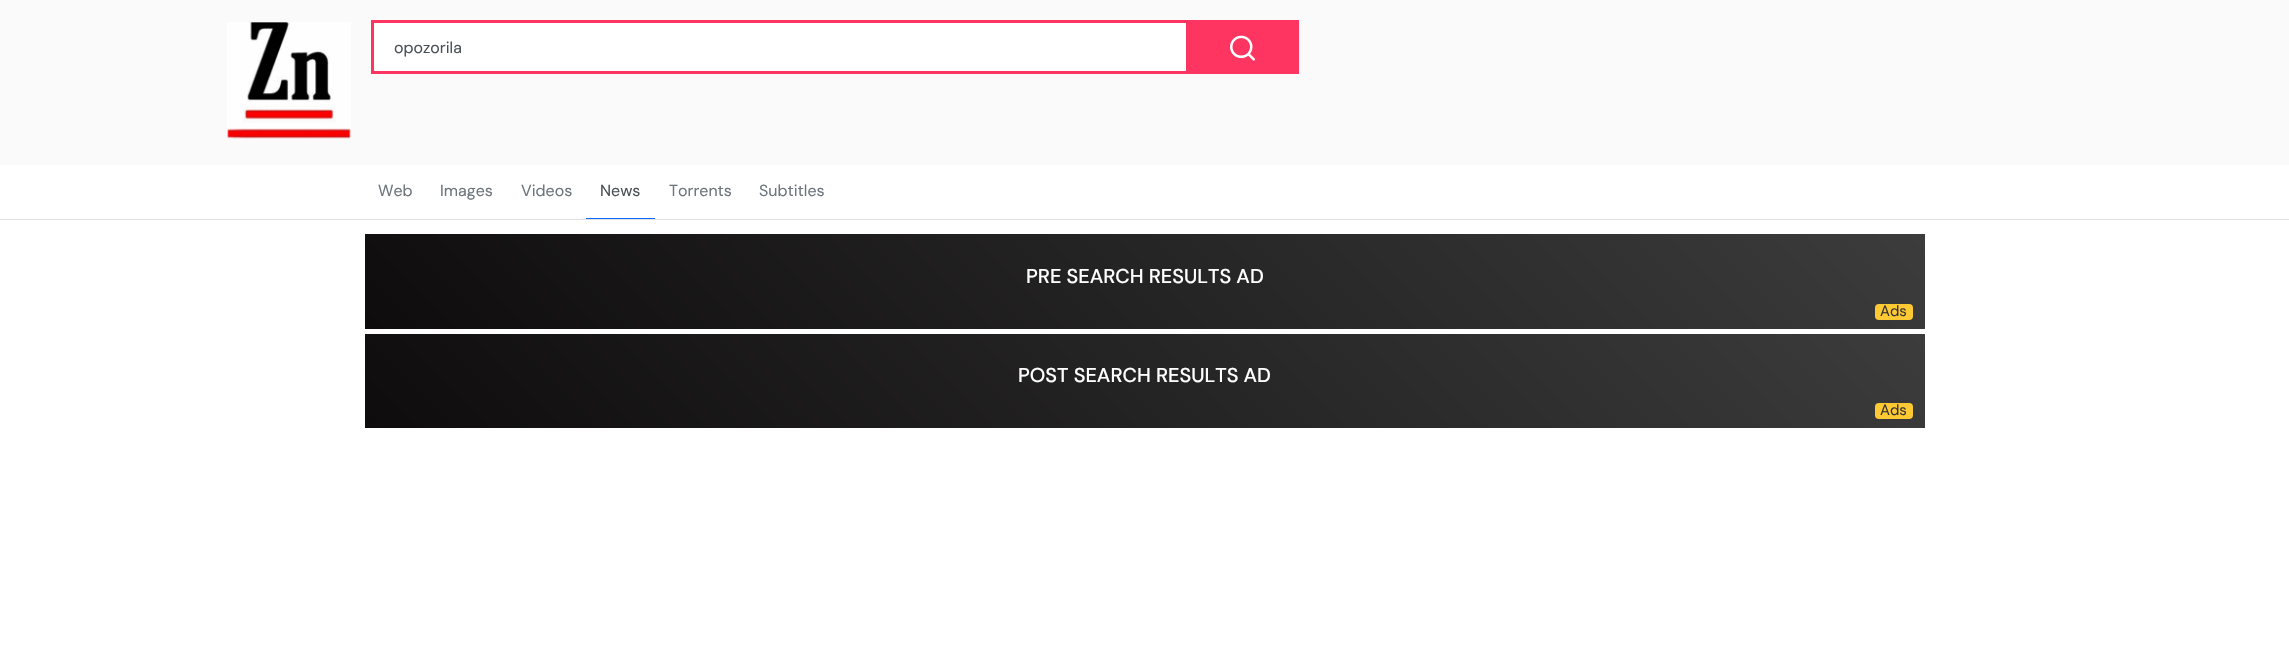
void draw(SkCanvas* canvas) {
    SkPaint paint;
    paint.setAntiAlias(true);
    canvas->clear(0xFFFFFFFF);
    paint.setColor(0xFFFAFAFA);
    canvas->drawRect(SkRect::MakeXYWH(0, 0, 2289, 165), paint);
    canvas->drawImageRect(SkImages::DeferredFromEncodedData(SkData::MakeFromFileName("img1.png")), SkRect::MakeXYWH(227, 22, 124, 117), SkSamplingOptions());
    paint.setColor(0xFFFFFFFF);
    canvas->drawRect(SkRect::MakeXYWH(374, 23, 812, 48), paint);
    paint.setColor(0xFFFE3560);
    canvas->drawRect(SkRect::MakeXYWH(371, 20, 817, 3), paint);
    canvas->drawRect(SkRect::MakeXYWH(371, 71, 817, 3), paint);
    canvas->drawRect(SkRect::MakeXYWH(371, 20, 3, 54), paint);
    SkFont font1(fontMgr->matchFamilyStyle("DM Sans", SkFontStyle::Normal()), 16);
    font1.setSubpixel(true);
    paint.setColor(0xFF495057);
    canvas->drawString("opozorila", 394, 53, font1, paint);
    paint.setColor(0xFFFE3560);
    canvas->drawRect(SkRect::MakeXYWH(1186, 20, 113, 54), paint);
    canvas->drawImageRect(SkImages::DeferredFromEncodedData(SkData::MakeFromFileName("img2.png")), SkRect::MakeXYWH(1230, 35, 25, 26), SkSamplingOptions());
    paint.setColor(0xFFDEE2E6);
    canvas->drawRect(SkRect::MakeXYWH(0, 219, 2289, 1), paint);
    paint.setColor(0xFF6C757D);
    canvas->drawString("Web", 378, 196, font1, paint);
    canvas->drawString("Images", 440, 196, font1, paint);
    canvas->drawString("Videos", 521, 196, font1, paint);
    paint.setColor(0xFF0F69FF);
    canvas->drawRect(SkRect::MakeXYWH(586, 218, 69, 1), paint);
    paint.setColor(0xFF495057);
    canvas->drawString("News", 600, 196, font1, paint);
    paint.setColor(0xFF6C757D);
    canvas->drawString("Torrents", 669, 196, font1, paint);
    canvas->drawString("Subtitles", 759, 196, font1, paint);
    {
        const SkColor colors[] = {0xFF0E0C0C, 0xFF3C3C3C};
        const float stops[] = {0, 1};
        const SkPoint ends[] = {{731, 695}, {1559, -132}};
        paint.setShader(SkGradientShader::MakeLinear(ends, colors, stops, 2, SkTileMode::kClamp));
        paint.setAlpha(255);
    }
    canvas->drawRect(SkRect::MakeXYWH(365, 234, 1560, 95), paint);
    SkFont font2(fontMgr->matchFamilyStyle("DM Sans", SkFontStyle(500, SkFontStyle::kNormal_Width, SkFontStyle::kUpright_Slant)), 20);
    font2.setSubpixel(true);
    paint.setShader(nullptr);
    paint.setColor(0xFFFFFFFF);
    canvas->drawString("PRE SEARCH RESULTS AD", 1026, 283, font2, paint);
    paint.setColor(0xFFFFC933);
    canvas->drawRoundRect(SkRect::MakeXYWH(1875, 304, 38, 16), 4, 4, paint);
    SkFont font3(fontMgr->matchFamilyStyle("DM Sans", SkFontStyle::Normal()), 15);
    font3.setSubpixel(true);
    paint.setColor(0xFF333333);
    canvas->drawString("Ads", 1880, 316, font3, paint);
    {
        const SkColor colors[] = {0xFF0E0C0C, 0xFF3C3C3C};
        const float stops[] = {0, 1};
        const SkPoint ends[] = {{732, 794}, {1558, -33}};
        paint.setShader(SkGradientShader::MakeLinear(ends, colors, stops, 2, SkTileMode::kClamp));
        paint.setAlpha(255);
    }
    canvas->drawRect(SkRect::MakeXYWH(365, 334, 1560, 94), paint);
    paint.setShader(nullptr);
    paint.setColor(0xFFFFFFFF);
    canvas->drawString("POST SEARCH RESULTS AD", 1018, 382, font2, paint);
    paint.setColor(0xFFFFC933);
    canvas->drawRoundRect(SkRect::MakeXYWH(1875, 403, 38, 16), 4, 4, paint);
    paint.setColor(0xFF333333);
    canvas->drawString("Ads", 1880, 415, font3, paint);
}
